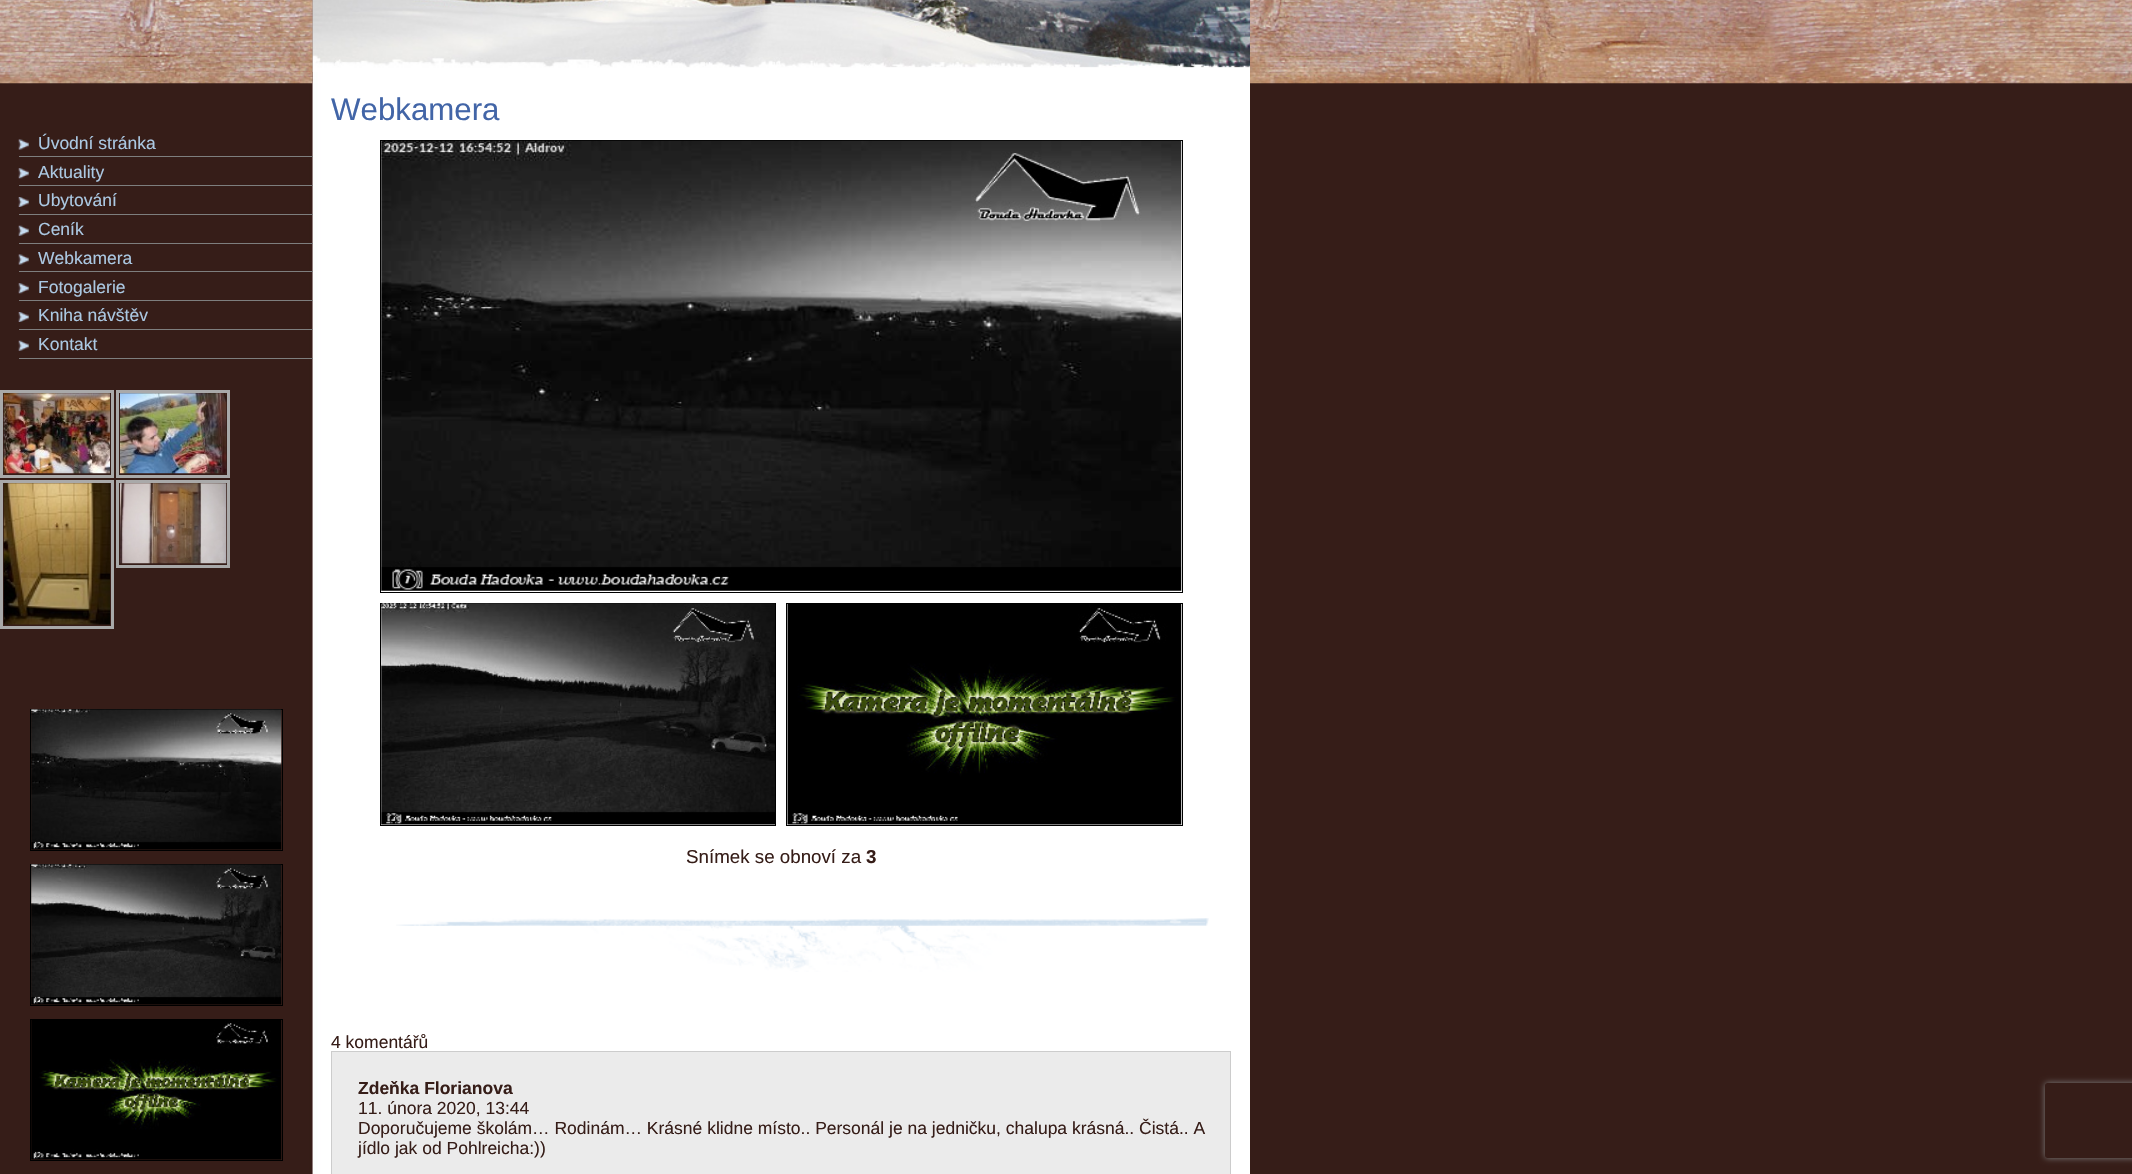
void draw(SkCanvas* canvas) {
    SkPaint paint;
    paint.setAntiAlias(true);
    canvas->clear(0xFF361D18);
    canvas->drawImageRect(SkImages::DeferredFromEncodedData(SkData::MakeFromFileName("img1.png")), SkRect::MakeXYWH(1250, 0, 882, 84), SkSamplingOptions());
    canvas->drawImageRect(SkImages::DeferredFromEncodedData(SkData::MakeFromFileName("img2.png")), SkRect::MakeXYWH(0, 0, 1250, 1174), SkSamplingOptions());
    canvas->drawImageRect(SkImages::DeferredFromEncodedData(SkData::MakeFromFileName("img3.png")), SkRect::MakeXYWH(0, 0, 313, 84), SkSamplingOptions());
    canvas->drawImageRect(SkImages::DeferredFromEncodedData(SkData::MakeFromFileName("img4.png")), SkRect::MakeXYWH(18, 139, 11, 11), SkSamplingOptions());
    paint.setColor(0xFF7E7E7E);
    canvas->drawRect(SkRect::MakeXYWH(19, 156, 294, 1), paint);
    SkFont font1(fontMgr->matchFamilyStyle("Liberation Sans", SkFontStyle::Normal()), 17.5f);
    font1.setSubpixel(true);
    paint.setColor(0xFFABC8E2);
    canvas->drawString("Úvodní stránka", 38, 149, font1, paint);
    canvas->drawImageRect(SkImages::DeferredFromEncodedData(SkData::MakeFromFileName("img5.png")), SkRect::MakeXYWH(18, 168, 11, 11), SkSamplingOptions());
    paint.setColor(0xFF7E7E7E);
    canvas->drawRect(SkRect::MakeXYWH(19, 185, 294, 1), paint);
    paint.setColor(0xFFABC8E2);
    canvas->drawString("Aktuality", 38, 178, font1, paint);
    canvas->drawImageRect(SkImages::DeferredFromEncodedData(SkData::MakeFromFileName("img6.png")), SkRect::MakeXYWH(18, 197, 11, 10), SkSamplingOptions());
    paint.setColor(0xFF7E7E7E);
    canvas->drawRect(SkRect::MakeXYWH(19, 214, 294, 1), paint);
    paint.setColor(0xFFABC8E2);
    canvas->drawString("Ubytování", 38, 206, font1, paint);
    canvas->drawImageRect(SkImages::DeferredFromEncodedData(SkData::MakeFromFileName("img7.png")), SkRect::MakeXYWH(18, 225, 11, 11), SkSamplingOptions());
    paint.setColor(0xFF7E7E7E);
    canvas->drawRect(SkRect::MakeXYWH(19, 243, 294, 1), paint);
    paint.setColor(0xFFABC8E2);
    canvas->drawString("Ceník", 38, 235, font1, paint);
    canvas->drawImageRect(SkImages::DeferredFromEncodedData(SkData::MakeFromFileName("img4.png")), SkRect::MakeXYWH(18, 254, 11, 11), SkSamplingOptions());
    paint.setColor(0xFF7E7E7E);
    canvas->drawRect(SkRect::MakeXYWH(19, 271, 294, 1), paint);
    paint.setColor(0xFFABC8E2);
    canvas->drawString("Webkamera", 38, 264, font1, paint);
    canvas->drawImageRect(SkImages::DeferredFromEncodedData(SkData::MakeFromFileName("img5.png")), SkRect::MakeXYWH(18, 283, 11, 11), SkSamplingOptions());
    paint.setColor(0xFF7E7E7E);
    canvas->drawRect(SkRect::MakeXYWH(19, 300, 294, 1), paint);
    paint.setColor(0xFFABC8E2);
    canvas->drawString("Fotogalerie", 38, 293, font1, paint);
    canvas->drawImageRect(SkImages::DeferredFromEncodedData(SkData::MakeFromFileName("img6.png")), SkRect::MakeXYWH(18, 312, 11, 10), SkSamplingOptions());
    paint.setColor(0xFF7E7E7E);
    canvas->drawRect(SkRect::MakeXYWH(19, 329, 294, 1), paint);
    paint.setColor(0xFFABC8E2);
    canvas->drawString("Kniha návštěv", 38, 321, font1, paint);
    canvas->drawImageRect(SkImages::DeferredFromEncodedData(SkData::MakeFromFileName("img7.png")), SkRect::MakeXYWH(18, 340, 11, 11), SkSamplingOptions());
    paint.setColor(0xFF7E7E7E);
    canvas->drawRect(SkRect::MakeXYWH(19, 358, 294, 1), paint);
    paint.setColor(0xFFABC8E2);
    canvas->drawString("Kontakt", 38, 350, font1, paint);
    paint.setStyle(SkPaint::kStroke_Style);
    paint.setStrokeWidth(3);
    paint.setColor(0xFFA9A9A9);
    canvas->drawRect(SkRect::MakeXYWH(1.5f, 391.5f, 111, 85), paint);
    canvas->drawImageRect(SkImages::DeferredFromEncodedData(SkData::MakeFromFileName("img8.png")), SkRect::MakeXYWH(3, 393, 107, 81), SkSamplingOptions());
    canvas->drawRect(SkRect::MakeXYWH(117.5f, 391.5f, 111, 85), paint);
    canvas->drawImageRect(SkImages::DeferredFromEncodedData(SkData::MakeFromFileName("img9.png")), SkRect::MakeXYWH(120, 393, 107, 81), SkSamplingOptions());
    canvas->drawRect(SkRect::MakeXYWH(1.5f, 481.5f, 111, 146), paint);
    canvas->drawImageRect(SkImages::DeferredFromEncodedData(SkData::MakeFromFileName("img10.png")), SkRect::MakeXYWH(3, 483, 107, 142), SkSamplingOptions());
    canvas->drawRect(SkRect::MakeXYWH(117.5f, 481.5f, 111, 85), paint);
    canvas->drawImageRect(SkImages::DeferredFromEncodedData(SkData::MakeFromFileName("img11.png")), SkRect::MakeXYWH(120, 483, 107, 81), SkSamplingOptions());
    paint.setStrokeWidth(1);
    paint.setColor(0xFF000000);
    canvas->drawRect(SkRect::MakeXYWH(30.5f, 709.5f, 252, 141), paint);
    canvas->drawImageRect(SkImages::DeferredFromEncodedData(SkData::MakeFromFileName("img12.png")), SkRect::MakeXYWH(31, 709, 251, 141), SkSamplingOptions());
    canvas->drawRect(SkRect::MakeXYWH(30.5f, 864.5f, 252, 141), paint);
    canvas->drawImageRect(SkImages::DeferredFromEncodedData(SkData::MakeFromFileName("img13.png")), SkRect::MakeXYWH(31, 864, 251, 141), SkSamplingOptions());
    canvas->drawRect(SkRect::MakeXYWH(30.5f, 1019.5f, 252, 141), paint);
    canvas->drawImageRect(SkImages::DeferredFromEncodedData(SkData::MakeFromFileName("img14.png")), SkRect::MakeXYWH(31, 1020, 251, 140), SkSamplingOptions());
    canvas->drawImageRect(SkImages::DeferredFromEncodedData(SkData::MakeFromFileName("img15.png")), SkRect::MakeXYWH(312, 0, 938, 72), SkSamplingOptions());
    SkFont font2(fontMgr->matchFamilyStyle("Liberation Sans", SkFontStyle::Normal()), 31.25f);
    font2.setSubpixel(true);
    paint.setStyle(SkPaint::kFill_Style);
    paint.setColor(0xFF4265A7);
    canvas->drawString("Webkamera", 331, 120, font2, paint);
    paint.setStyle(SkPaint::kStroke_Style);
    paint.setColor(0xFF000000);
    canvas->drawRect(SkRect::MakeXYWH(380.5f, 140.5f, 802, 452), paint);
    canvas->drawImageRect(SkImages::DeferredFromEncodedData(SkData::MakeFromFileName("img16.png")), SkRect::MakeXYWH(381, 140, 801, 451), SkSamplingOptions());
    canvas->drawRect(SkRect::MakeXYWH(380.5f, 603.5f, 395, 222), paint);
    canvas->drawImageRect(SkImages::DeferredFromEncodedData(SkData::MakeFromFileName("img17.png")), SkRect::MakeXYWH(381, 603, 394, 222), SkSamplingOptions());
    canvas->drawRect(SkRect::MakeXYWH(786.5f, 603.5f, 396, 222), paint);
    canvas->drawImageRect(SkImages::DeferredFromEncodedData(SkData::MakeFromFileName("img18.png")), SkRect::MakeXYWH(787, 604, 395, 221), SkSamplingOptions());
    SkFont font3(fontMgr->matchFamilyStyle("Liberation Sans", SkFontStyle::Normal()), 18.75f);
    font3.setSubpixel(true);
    paint.setStyle(SkPaint::kFill_Style);
    paint.setColor(0xFF361D18);
    canvas->drawString("Snímek se obnoví za", 686, 863, font3, paint);
    SkFont font4(fontMgr->matchFamilyStyle("Liberation Sans", SkFontStyle::Bold()), 18.75f);
    font4.setSubpixel(true);
    canvas->drawString("3", 866, 863, font4, paint);
    canvas->drawImageRect(SkImages::DeferredFromEncodedData(SkData::MakeFromFileName("img19.png")), SkRect::MakeXYWH(396, 918, 813, 54), SkSamplingOptions());
    canvas->drawString("4 komentářů", 331, 1048, font1, paint);
    paint.setColor(0xFFEBEBEB);
    canvas->drawRect(SkRect::MakeXYWH(331.5f, 1051.5f, 899, 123), paint);
    paint.setStyle(SkPaint::kStroke_Style);
    paint.setColor(0xFFCCCCCC);
    canvas->drawRect(SkRect::MakeXYWH(331.5f, 1051.5f, 899, 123), paint);
    SkFont font5(fontMgr->matchFamilyStyle("Liberation Sans", SkFontStyle::Bold()), 17.5f);
    font5.setSubpixel(true);
    paint.setStyle(SkPaint::kFill_Style);
    paint.setColor(0xFF361D18);
    canvas->drawString("Zdeňka Florianova", 358, 1094, font5, paint);
    canvas->drawString("11. února 2020, 13:44", 358, 1114, font1, paint);
    canvas->drawString("Doporučujeme školám… Rodinám… Krásné klidne místo.. Personál je na jedničku, chalupa krásná.. Čistá.. A", 358, 1134, font1, paint);
    canvas->drawString("jídlo jak od Pohlreicha:))", 358, 1154, font1, paint);
    canvas->save();
    canvas->clipPath(SkPathBuilder(SkPathFillType::kEvenOdd).moveTo(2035, 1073).lineTo(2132, 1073).lineTo(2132, 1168).lineTo(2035, 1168).close().moveTo(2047.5f, 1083).lineTo(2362.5f, 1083).cubicTo(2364, 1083, 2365, 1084, 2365, 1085.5f).lineTo(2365, 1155.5f).cubicTo(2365, 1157, 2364, 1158, 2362.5f, 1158).lineTo(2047.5f, 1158).cubicTo(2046, 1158, 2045, 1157, 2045, 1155.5f).lineTo(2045, 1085.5f).cubicTo(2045, 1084, 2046, 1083, 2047.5f, 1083).close().detach(), true);
    paint.setColor(0xFF808080);
    paint.setMaskFilter(SkMaskFilter::MakeBlur(kNormal_SkBlurStyle, 3));
    canvas->drawRoundRect(SkRect::MakeXYWH(2045, 1083, 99, 75), 2.5f, 2.5f, paint);
    paint.setMaskFilter(nullptr);
    canvas->restore();
}
